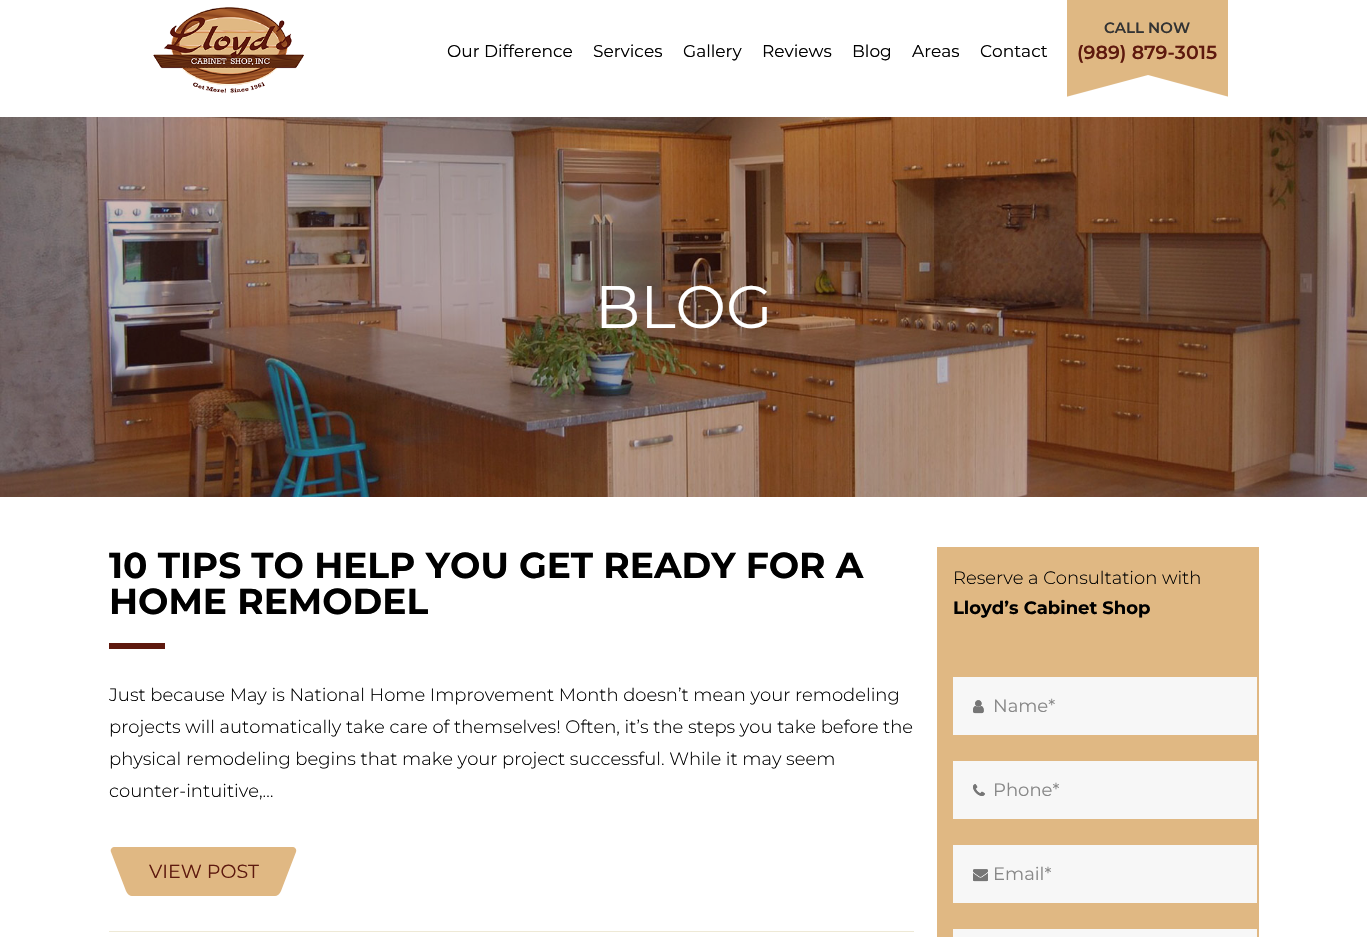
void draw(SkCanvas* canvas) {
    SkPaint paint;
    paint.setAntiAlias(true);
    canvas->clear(0xFFFFFFFF);
    canvas->drawImageRect(SkImages::DeferredFromEncodedData(SkData::MakeFromFileName("img1.png")), SkRect::MakeXYWH(153, 7, 151, 86), SkSamplingOptions());
    SkFont font1(fontMgr->matchFamilyStyle("Montserrat", SkFontStyle::Normal()), 17);
    font1.setSubpixel(true);
    paint.setColor(0xFF000000);
    canvas->drawString("Our Difference", 447, 57, font1, paint);
    canvas->drawString("Services", 593, 57, font1, paint);
    canvas->drawString("Gallery", 683, 57, font1, paint);
    canvas->drawString("Reviews", 762, 57, font1, paint);
    canvas->drawString("Blog", 852, 57, font1, paint);
    canvas->drawString("Areas", 912, 57, font1, paint);
    canvas->drawString("Contact", 980, 57, font1, paint);
    canvas->drawImageRect(SkImages::DeferredFromEncodedData(SkData::MakeFromFileName("img2.png")), SkRect::MakeXYWH(1067, 0, 161, 97), SkSamplingOptions());
    SkFont font2(fontMgr->matchFamilyStyle("Montserrat", SkFontStyle(600, SkFontStyle::kNormal_Width, SkFontStyle::kUpright_Slant)), 15);
    font2.setSubpixel(true);
    paint.setColor(0xFF333333);
    canvas->drawString("CALL NOW", 1104, 33, font2, paint);
    SkFont font3(fontMgr->matchFamilyStyle("Montserrat", SkFontStyle(600, SkFontStyle::kNormal_Width, SkFontStyle::kUpright_Slant)), 19);
    font3.setSubpixel(true);
    paint.setColor(0xFF5E190E);
    canvas->drawString("(989) 879-3015", 1077, 59, font3, paint);
    canvas->drawImageRect(SkImages::DeferredFromEncodedData(SkData::MakeFromFileName("img3.png")), SkRect::MakeXYWH(0, 117, 1367, 380), SkSamplingOptions());
    SkFont font4(fontMgr->matchFamilyStyle("Montserrat", SkFontStyle::Normal()), 60);
    font4.setSubpixel(true);
    paint.setColor(0xFFFFFFFF);
    canvas->drawString("BLOG", 595, 328, font4, paint);
    paint.setColor(0xFFEEE9D6);
    canvas->drawRect(SkRect::MakeXYWH(109, 931, 805, 1), paint);
    SkFont font5(fontMgr->matchFamilyStyle("Montserrat", SkFontStyle::Bold()), 36);
    font5.setSubpixel(true);
    paint.setColor(0xFF000000);
    canvas->drawString("10 TIPS TO HELP YOU GET READY FOR A", 109, 578, font5, paint);
    canvas->drawString("HOME REMODEL", 109, 614, font5, paint);
    paint.setColor(0xFF5E190E);
    canvas->drawRect(SkRect::MakeXYWH(109, 643, 56, 6), paint);
    SkFont font6(fontMgr->matchFamilyStyle("Montserrat", SkFontStyle(300, SkFontStyle::kNormal_Width, SkFontStyle::kUpright_Slant)), 18);
    font6.setSubpixel(true);
    paint.setColor(0xFF000000);
    canvas->drawString("Just because May is National Home Improvement Month doesn’t mean your remodeling", 109, 701, font6, paint);
    canvas->drawString("projects will automatically take care of themselves! Often, it’s the steps you take before the", 109, 733, font6, paint);
    canvas->drawString("physical remodeling begins that make your project successful. While it may seem", 109, 765, font6, paint);
    canvas->drawString("counter-intuitive,…", 109, 797, font6, paint);
    paint.setColor(0xFFE0B883);
    canvas->drawRoundRect(SkRect::MakeXYWH(129, 847, 149, 49), 5, 5, paint);
    SkFont font7(fontMgr->matchFamilyStyle("Montserrat", SkFontStyle::Normal()), 19);
    font7.setSubpixel(true);
    paint.setColor(0xFF5E190E);
    canvas->drawString("VIEW POST", 149, 878, font7, paint);
    paint.setColor(0xFFE0B883);
    canvas->drawPath(SkPathBuilder().moveTo(115, 847).lineTo(135, 847).lineTo(152, 896).lineTo(132, 896).cubicTo(130, 896, 127, 894, 126, 891).lineTo(111, 852).cubicTo(110, 849, 112, 847, 115, 847).close().detach(), paint);
    canvas->drawPath(SkPathBuilder().moveTo(272, 847).lineTo(292, 847).cubicTo(295, 847, 297, 849, 296, 852).lineTo(281, 891).cubicTo(280, 894, 277, 896, 275, 896).lineTo(255, 896).close().detach(), paint);
    canvas->drawRect(SkRect::MakeXYWH(937, 547, 322, 390), paint);
    paint.setColor(0xFF000000);
    canvas->drawString("Reserve a Consultation with", 953, 584, font6, paint);
    SkFont font8(fontMgr->matchFamilyStyle("Montserrat", SkFontStyle::Bold()), 18);
    font8.setSubpixel(true);
    canvas->drawString("Lloyd’s Cabinet Shop", 953, 614, font8, paint);
    paint.setColor(0xFFF7F7F7);
    canvas->drawRect(SkRect::MakeXYWH(953, 677, 304, 58), paint);
    canvas->drawImageRect(SkImages::DeferredFromEncodedData(SkData::MakeFromFileName("img4.png")), SkRect::MakeXYWH(973, 700, 11, 14), SkSamplingOptions());
    SkFont font9(fontMgr->matchFamilyStyle("Montserrat", SkFontStyle::Normal()), 18);
    font9.setSubpixel(true);
    paint.setColor(0xFF888888);
    canvas->drawString("Name*", 993, 712, font9, paint);
    canvas->drawImageRect(SkImages::DeferredFromEncodedData(SkData::MakeFromFileName("img5.png")), SkRect::MakeXYWH(973, 700, 11, 14), SkSamplingOptions());
    paint.setColor(0xFFF7F7F7);
    canvas->drawRect(SkRect::MakeXYWH(953, 761, 304, 58), paint);
    canvas->drawImageRect(SkImages::DeferredFromEncodedData(SkData::MakeFromFileName("img6.png")), SkRect::MakeXYWH(973, 784, 12, 12), SkSamplingOptions());
    paint.setColor(0xFF888888);
    canvas->drawString("Phone*", 993, 796, font9, paint);
    canvas->drawImageRect(SkImages::DeferredFromEncodedData(SkData::MakeFromFileName("img7.png")), SkRect::MakeXYWH(973, 784, 12, 12), SkSamplingOptions());
    paint.setColor(0xFFF7F7F7);
    canvas->drawRect(SkRect::MakeXYWH(953, 845, 304, 58), paint);
    canvas->drawImageRect(SkImages::DeferredFromEncodedData(SkData::MakeFromFileName("img8.png")), SkRect::MakeXYWH(973, 869, 15, 13), SkSamplingOptions());
    paint.setColor(0xFF888888);
    canvas->drawString("Email*", 993, 880, font9, paint);
    canvas->drawImageRect(SkImages::DeferredFromEncodedData(SkData::MakeFromFileName("img9.png")), SkRect::MakeXYWH(973, 869, 15, 13), SkSamplingOptions());
    paint.setColor(0xFFF7F7F7);
    canvas->drawRect(SkRect::MakeXYWH(953, 929, 304, 8), paint);
}
